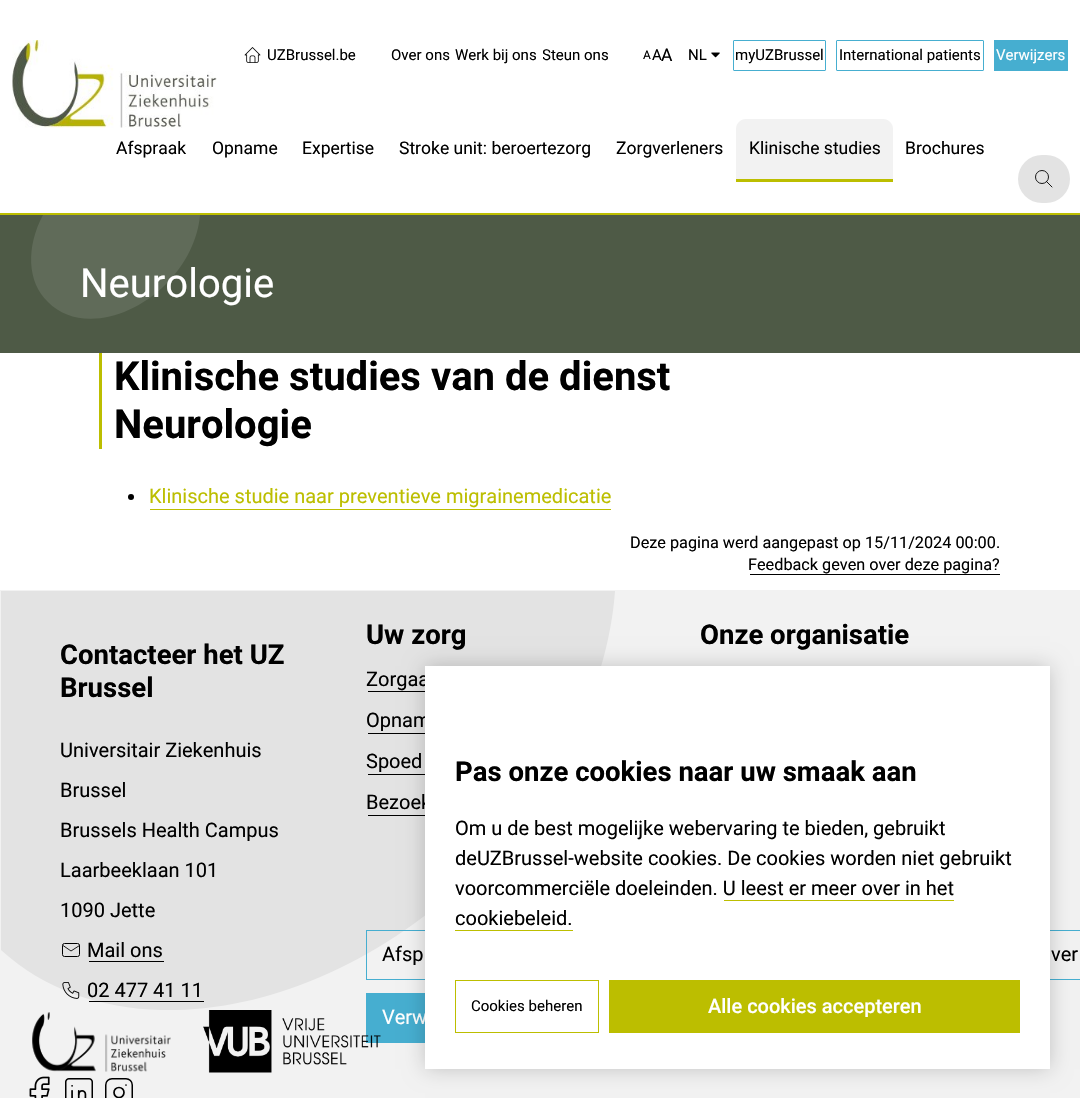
void draw(SkCanvas* canvas) {
    SkPaint paint;
    paint.setAntiAlias(true);
    canvas->clear(0xFFFFFFFF);
    canvas->drawImageRect(SkImages::DeferredFromEncodedData(SkData::MakeFromFileName("img1.png")), SkRect::MakeXYWH(12, 40, 205, 88), SkSamplingOptions());
    canvas->drawImageRect(SkImages::DeferredFromEncodedData(SkData::MakeFromFileName("img2.png")), SkRect::MakeXYWH(244, 47, 17, 16), SkSamplingOptions());
    SkFont font1(fontMgr->matchFamilyStyle("Roboto", SkFontStyle::Normal()), 15);
    font1.setSubpixel(true);
    paint.setColor(0xFF000000);
    canvas->drawString("UZBrussel.be", 267, 60, font1, paint);
    canvas->drawString("Over ons", 391, 60, font1, paint);
    canvas->drawString("Werk bij ons", 455, 60, font1, paint);
    canvas->save();
    canvas->clipRect(SkRect::MakeXYWH(543, 45, 66, 21));
    canvas->drawString("Steun ons", 542, 60, font1, paint);
    canvas->restore();
    SkFont font2(fontMgr->matchFamilyStyle("Roboto", SkFontStyle::Normal()), 12);
    font2.setSubpixel(true);
    canvas->drawString("A", 643, 59, font2, paint);
    canvas->drawString("A", 652, 60, font1, paint);
    SkFont font3(fontMgr->matchFamilyStyle("Roboto", SkFontStyle::Normal()), 17.5f);
    font3.setSubpixel(true);
    canvas->drawString("A", 661, 61, font3, paint);
    canvas->drawString("NL", 688, 60, font1, paint);
    canvas->drawImageRect(SkImages::DeferredFromEncodedData(SkData::MakeFromFileName("img3.png")), SkRect::MakeXYWH(711, 52, 9, 6), SkSamplingOptions());
    paint.setStyle(SkPaint::kStroke_Style);
    paint.setStrokeWidth(1);
    paint.setColor(0xFF46AED0);
    canvas->drawRoundRect(SkRect::MakeXYWH(733.5f, 40.5f, 92, 30), 0.5f, 0.5f, paint);
    paint.setStyle(SkPaint::kFill_Style);
    paint.setColor(0xFF000000);
    canvas->drawString("myUZBrussel", 735, 60, font1, paint);
    paint.setStyle(SkPaint::kStroke_Style);
    paint.setColor(0xFF46AED0);
    canvas->drawRoundRect(SkRect::MakeXYWH(836.5f, 40.5f, 147, 30), 0.5f, 0.5f, paint);
    paint.setStyle(SkPaint::kFill_Style);
    paint.setColor(0xFF000000);
    canvas->drawString("International patients", 839, 60, font1, paint);
    paint.setColor(0xFF46AED0);
    canvas->drawRect(SkRect::MakeXYWH(994, 40, 74, 31), paint);
    paint.setColor(0xFFFFFFFF);
    canvas->drawString("Verwijzers", 996, 60, font1, paint);
    paint.setColor(0xFFBCBE00);
    canvas->drawRect(SkRect::MakeXYWH(0, 213, 1080, 2), paint);
    paint.setColor(0xFF000000);
    canvas->drawString("Afspraak", 116, 154, font3, paint);
    canvas->drawString("Opname", 212, 154, font3, paint);
    canvas->drawString("Expertise", 302, 154, font3, paint);
    canvas->drawString("Stroke unit: beroertezorg", 399, 154, font3, paint);
    canvas->drawString("Zorgverleners", 616, 154, font3, paint);
    paint.setColor(0xFFF2F2F2);
    canvas->drawPath(SkPathBuilder().moveTo(746, 119).lineTo(883, 119).cubicTo(888.5f, 119, 893, 123.5f, 893, 129).lineTo(893, 181).lineTo(736, 181).lineTo(736, 129).cubicTo(736, 123.5f, 740.5f, 119, 746, 119).close().detach(), paint);
    paint.setColor(0xFFBCBE00);
    canvas->drawRect(SkRect::MakeXYWH(736, 179, 157, 3), paint);
    paint.setColor(0xFF000000);
    canvas->drawString("Klinische studies", 749, 154, font3, paint);
    canvas->drawString("Brochures", 905, 154, font3, paint);
    paint.setColor(0xFFE3E3E3);
    canvas->drawRoundRect(SkRect::MakeXYWH(1018, 155, 52, 48), 24, 24, paint);
    paint.setStyle(SkPaint::kStroke_Style);
    paint.setStrokeWidth(0.9f);
    paint.setColor(0xFF000000);
    canvas->drawCircle(1042, 177, 6.5f, paint);
    paint.setStrokeCap(SkPaint::kRound_Cap);
    paint.setStrokeJoin(SkPaint::kRound_Join);
    canvas->drawPath(SkPathBuilder().moveTo(1052, 187).lineTo(1046.5f, 181.5f).detach(), paint);
    paint.setStyle(SkPaint::kFill_Style);
    paint.setColor(0xFF4E5A46);
    canvas->drawRect(SkRect::MakeXYWH(0, 215, 1080, 138), paint);
    paint.setColor(0xFF606B59);
    canvas->drawPath(SkPathBuilder().moveTo(48, 302).cubicTo(75, 330, 128, 322, 166, 284).cubicTo(186, 264, 198, 239, 200, 215).lineTo(43, 215).cubicTo(26, 247, 27, 282, 48, 302).close().detach(), paint);
    SkFont font4(fontMgr->matchFamilyStyle("Roboto", SkFontStyle::Normal()), 40);
    font4.setSubpixel(true);
    paint.setColor(0xFFFFFFFF);
    canvas->drawString("Neurologie", 80, 297, font4, paint);
    paint.setColor(0xFFBCBE00);
    canvas->drawRect(SkRect::MakeXYWH(99, 353, 3, 96), paint);
    SkFont font5(fontMgr->matchFamilyStyle("Roboto", SkFontStyle::Bold()), 40);
    font5.setSubpixel(true);
    paint.setColor(0xFF000000);
    canvas->drawString("Klinische studies van de dienst", 114, 390, font5, paint);
    canvas->drawString("Neurologie", 114, 438, font5, paint);
    canvas->drawCircle(131, 497, 3, paint);
    SkFont font6(fontMgr->matchFamilyStyle("Roboto", SkFontStyle::Normal()), 20);
    font6.setSubpixel(true);
    paint.setColor(0xFFBCBE00);
    canvas->drawString("Klinische studie naar preventieve migrainemedicatie", 149, 503, font6, paint);
    canvas->drawRect(SkRect::MakeXYWH(150, 509, 461, 1), paint);
    SkFont font7(fontMgr->matchFamilyStyle("Roboto", SkFontStyle::Normal()), 16.25f);
    font7.setSubpixel(true);
    paint.setColor(0xFF000000);
    canvas->drawString("Deze pagina werd aangepast op 15/11/2024 00:00.", 630, 548, font7, paint);
    canvas->drawString("Feedback geven over deze pagina?", 748, 570, font7, paint);
    canvas->drawRect(SkRect::MakeXYWH(750, 574, 250, 1), paint);
    paint.setColor(0xFFF2F2F2);
    canvas->drawRect(SkRect::MakeXYWH(0, 590, 1080, 508), paint);
    canvas->save();
    canvas->clipRect(SkRect::MakeXYWH(0, 590, 616, 420));
    paint.setColor(0xFFE3E3E3);
    canvas->drawPath(SkPathBuilder().moveTo(1, 950).cubicTo(115, 1054, 325, 1020, 476, 871).cubicTo(560, 787, 608, 685, 615, 591).lineTo(1, 591).close().detach(), paint);
    canvas->restore();
    SkFont font8(fontMgr->matchFamilyStyle("Roboto", SkFontStyle::Bold()), 27.5f);
    font8.setSubpixel(true);
    paint.setColor(0xFF000000);
    canvas->drawString("Contacteer het UZ", 60, 664, font8, paint);
    canvas->drawString("Brussel", 60, 697, font8, paint);
    canvas->drawString("Universitair Ziekenhuis", 60, 757, font6, paint);
    canvas->drawString("Brussel", 60, 797, font6, paint);
    canvas->drawString("Brussels Health Campus", 60, 837, font6, paint);
    canvas->drawString("Laarbeeklaan 101", 60, 877, font6, paint);
    canvas->drawString("1090 Jette", 60, 917, font6, paint);
    paint.setStyle(SkPaint::kStroke_Style);
    paint.setStrokeWidth(1);
    paint.setStrokeCap(SkPaint::kButt_Cap);
    paint.setStrokeJoin(SkPaint::kMiter_Join);
    canvas->drawRoundRect(SkRect::MakeXYWH(62.5f, 943.5f, 17, 13), 2, 2, paint);
    paint.setStrokeWidth(0.9f);
    paint.setStrokeCap(SkPaint::kRound_Cap);
    paint.setStrokeJoin(SkPaint::kRound_Join);
    canvas->drawPath(SkPathBuilder().moveTo(63, 945.5f).lineTo(71, 951).lineTo(79.5f, 945.5f).detach(), paint);
    paint.setStyle(SkPaint::kFill_Style);
    canvas->drawString("Mail ons", 87, 957, font6, paint);
    canvas->drawRect(SkRect::MakeXYWH(89, 961, 75, 1), paint);
    canvas->drawImageRect(SkImages::DeferredFromEncodedData(SkData::MakeFromFileName("img4.png")), SkRect::MakeXYWH(62, 982, 18, 17), SkSamplingOptions());
    canvas->drawString("02 477 41 11", 87, 997, font6, paint);
    canvas->drawRect(SkRect::MakeXYWH(89, 1001, 115, 1), paint);
    canvas->drawString("Uw zorg", 366, 644, font8, paint);
    canvas->drawString("Zorgaa", 366, 686, font6, paint);
    canvas->drawRect(SkRect::MakeXYWH(368, 691, 57, 1), paint);
    canvas->drawString("Opnam", 366, 727, font6, paint);
    canvas->drawRect(SkRect::MakeXYWH(368, 733, 57, 1), paint);
    canvas->drawString("Spoed", 366, 768, font6, paint);
    canvas->drawRect(SkRect::MakeXYWH(368, 774, 57, 1), paint);
    canvas->drawString("Bezoek", 366, 809, font6, paint);
    canvas->drawRect(SkRect::MakeXYWH(368, 815, 57, 1), paint);
    canvas->drawString("Onze organisatie", 700, 644, font8, paint);
    paint.setStyle(SkPaint::kStroke_Style);
    paint.setStrokeWidth(1);
    paint.setStrokeCap(SkPaint::kButt_Cap);
    paint.setStrokeJoin(SkPaint::kMiter_Join);
    paint.setColor(0xFF46AED0);
    canvas->drawRect(SkRect::MakeXYWH(366.5f, 930.5f, 112, 49), paint);
    paint.setStyle(SkPaint::kFill_Style);
    paint.setColor(0xFF000000);
    canvas->drawString("Afsp", 382, 961, font6, paint);
    paint.setStyle(SkPaint::kStroke_Style);
    paint.setColor(0xFF46AED0);
    canvas->drawRect(SkRect::MakeXYWH(994.5f, 930.5f, 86, 49), paint);
    paint.setStyle(SkPaint::kFill_Style);
    paint.setColor(0xFF000000);
    canvas->drawString("ver", 1051, 961, font6, paint);
    paint.setColor(0xFF46AED0);
    canvas->drawRect(SkRect::MakeXYWH(366, 993, 59, 50), paint);
    paint.setColor(0xFFFFFFFF);
    canvas->drawString("Verw", 382, 1024, font6, paint);
    canvas->drawImageRect(SkImages::DeferredFromEncodedData(SkData::MakeFromFileName("img5.png")), SkRect::MakeXYWH(32, 1012, 139, 60), SkSamplingOptions());
    canvas->drawImageRect(SkImages::DeferredFromEncodedData(SkData::MakeFromFileName("img6.png")), SkRect::MakeXYWH(203, 1010, 178, 63), SkSamplingOptions());
    canvas->drawImageRect(SkImages::DeferredFromEncodedData(SkData::MakeFromFileName("img7.png")), SkRect::MakeXYWH(29, 1076, 21, 22), SkSamplingOptions());
    canvas->drawImageRect(SkImages::DeferredFromEncodedData(SkData::MakeFromFileName("img8.png")), SkRect::MakeXYWH(65, 1078, 28, 20), SkSamplingOptions());
    paint.setStyle(SkPaint::kStroke_Style);
    paint.setStrokeWidth(1.5f);
    paint.setColor(0xFF000000);
    canvas->drawRoundRect(SkRect::MakeXYWH(105.75f, 1078.75f, 26.5f, 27.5f), 6.25f, 6.25f, paint);
    paint.setStrokeWidth(1.7f);
    paint.setStrokeCap(SkPaint::kRound_Cap);
    paint.setStrokeJoin(SkPaint::kRound_Join);
    canvas->drawPath(SkPathBuilder().moveTo(126, 1085).lineTo(126, 1085).detach(), paint);
    paint.setStrokeCap(SkPaint::kButt_Cap);
    paint.setStrokeJoin(SkPaint::kMiter_Join);
    canvas->drawCircle(119, 1092.5f, 5, paint);
    paint.setStyle(SkPaint::kFill_Style);
    paint.setColor(0x33000000);
    paint.setMaskFilter(SkMaskFilter::MakeBlur(kNormal_SkBlurStyle, 10));
    canvas->drawRect(SkRect::MakeXYWH(425, 666, 625, 403), paint);
    paint.setMaskFilter(nullptr);
    paint.setColor(0xFFFFFFFF);
    canvas->drawRect(SkRect::MakeXYWH(425, 666, 625, 403), paint);
    paint.setColor(0xFF000000);
    canvas->drawString("Pas onze cookies naar uw smaak aan", 455, 781, font8, paint);
    canvas->drawString("Om u de best mogelijke webervaring te bieden, gebruikt", 455, 835, font6, paint);
    canvas->drawString("deUZBrussel-website cookies. De cookies worden niet gebruikt", 455, 865, font6, paint);
    canvas->drawString("voorcommerciële doeleinden. U leest er meer over in het", 455, 895, font6, paint);
    canvas->drawString("cookiebeleid.", 455, 925, font6, paint);
    paint.setColor(0xFFBCBE00);
    canvas->drawRect(SkRect::MakeXYWH(724, 900, 230, 1), paint);
    canvas->drawRect(SkRect::MakeXYWH(455, 930, 118, 1), paint);
    paint.setStyle(SkPaint::kStroke_Style);
    paint.setStrokeWidth(1);
    canvas->drawRect(SkRect::MakeXYWH(455.5f, 980.5f, 143, 52), paint);
    paint.setStyle(SkPaint::kFill_Style);
    paint.setColor(0xFF000000);
    canvas->drawString("Cookies beheren", 471, 1011, font1, paint);
    paint.setColor(0xFFBCBE00);
    canvas->drawRect(SkRect::MakeXYWH(609, 980, 411, 53), paint);
    SkFont font9(fontMgr->matchFamilyStyle("Roboto", SkFontStyle(500, SkFontStyle::kNormal_Width, SkFontStyle::kUpright_Slant)), 20);
    font9.setSubpixel(true);
    paint.setColor(0xFFFFFFFF);
    canvas->drawString("Alle cookies accepteren", 708, 1013, font9, paint);
}
